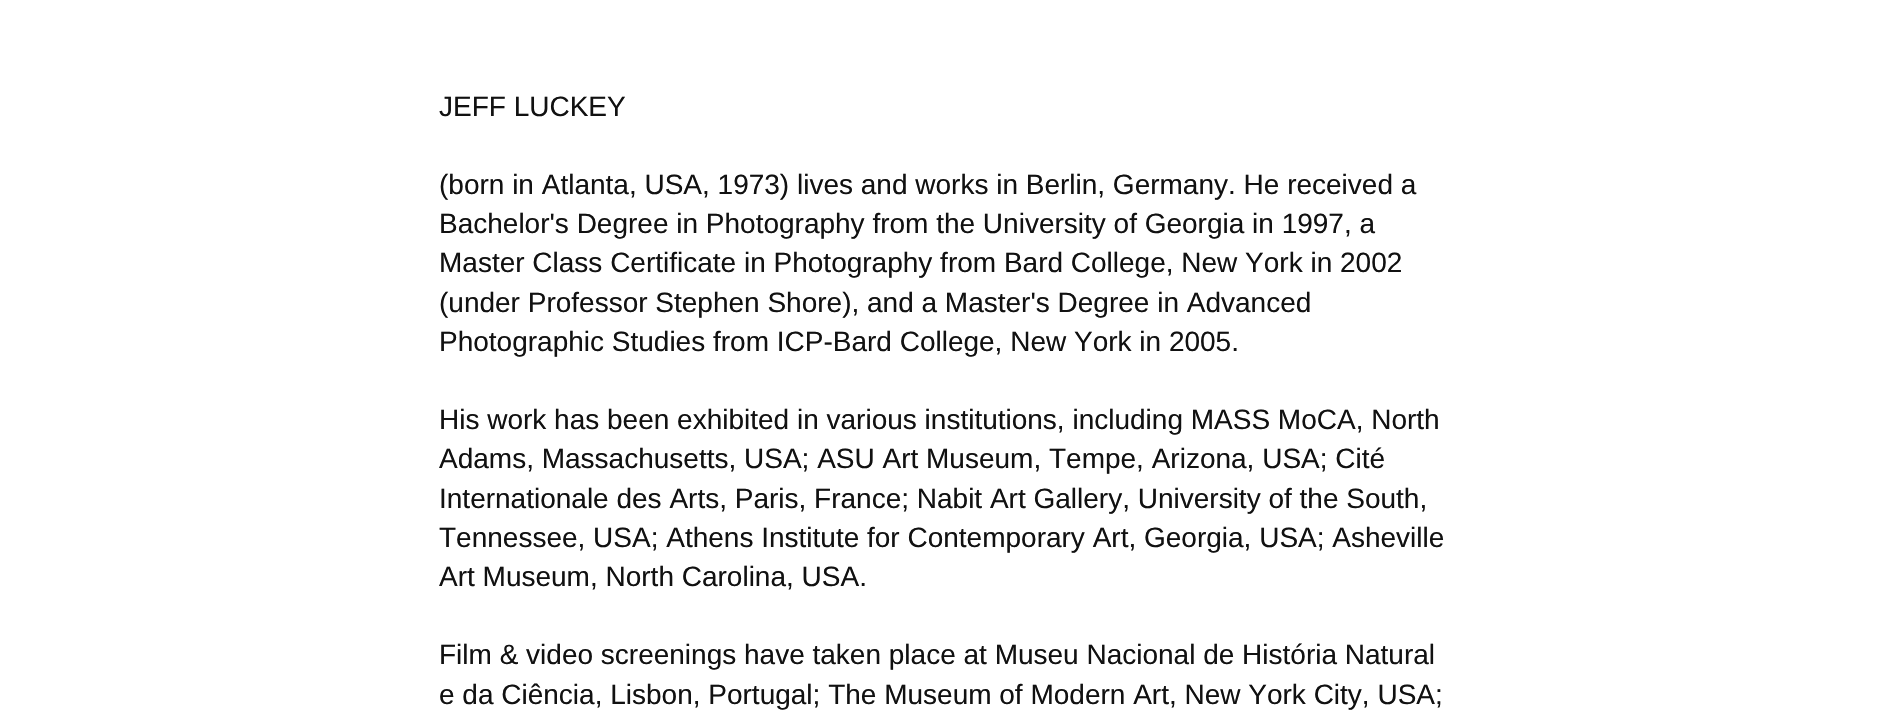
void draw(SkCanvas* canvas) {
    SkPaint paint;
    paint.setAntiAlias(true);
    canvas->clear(0xFFFFFFFF);
    SkFont font1(fontMgr->matchFamilyStyle("Liberation Sans", SkFontStyle::Normal()), 28);
    font1.setSubpixel(true);
    paint.setColor(0xFF111111);
    canvas->drawString("JEFF LUCKEY", 439, 116, font1, paint);
    canvas->drawString("(born in Atlanta, USA, 1973) lives and works in Berlin, Germany. He received a", 439, 194, font1, paint);
    canvas->drawString("Bachelor's Degree in Photography from the University of Georgia in 1997, a", 439, 233, font1, paint);
    canvas->drawString("Master Class Certificate in Photography from Bard College, New York in 2002", 439, 272, font1, paint);
    canvas->drawString("(under Professor Stephen Shore), and a Master's Degree in Advanced", 439, 312, font1, paint);
    canvas->drawString("Photographic Studies from ICP-Bard College, New York in 2005.", 439, 351, font1, paint);
    canvas->drawString("His work has been exhibited in various institutions, including MASS MoCA, North", 439, 429, font1, paint);
    canvas->drawString("Adams, Massachusetts, USA; ASU Art Museum, Tempe, Arizona, USA; Cité", 439, 468, font1, paint);
    canvas->drawString("Internationale des Arts, Paris, France; Nabit Art Gallery, University of the South,", 439, 508, font1, paint);
    canvas->drawString("Tennessee, USA; Athens Institute for Contemporary Art, Georgia, USA; Asheville", 439, 547, font1, paint);
    canvas->drawString("Art Museum, North Carolina, USA.", 439, 586, font1, paint);
    canvas->drawString("Film & video screenings have taken place at Museu Nacional de História Natural", 439, 664, font1, paint);
    canvas->drawString("e da Ciência, Lisbon, Portugal; The Museum of Modern Art, New York City, USA;", 439, 704, font1, paint);
}
